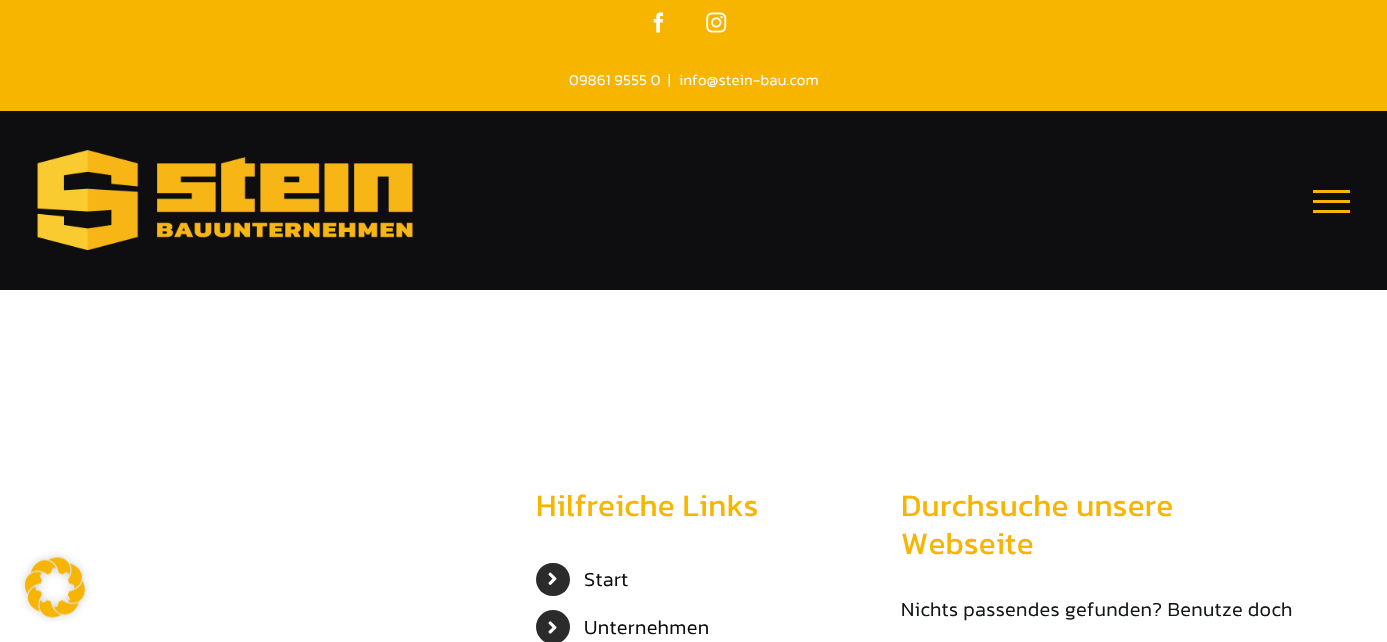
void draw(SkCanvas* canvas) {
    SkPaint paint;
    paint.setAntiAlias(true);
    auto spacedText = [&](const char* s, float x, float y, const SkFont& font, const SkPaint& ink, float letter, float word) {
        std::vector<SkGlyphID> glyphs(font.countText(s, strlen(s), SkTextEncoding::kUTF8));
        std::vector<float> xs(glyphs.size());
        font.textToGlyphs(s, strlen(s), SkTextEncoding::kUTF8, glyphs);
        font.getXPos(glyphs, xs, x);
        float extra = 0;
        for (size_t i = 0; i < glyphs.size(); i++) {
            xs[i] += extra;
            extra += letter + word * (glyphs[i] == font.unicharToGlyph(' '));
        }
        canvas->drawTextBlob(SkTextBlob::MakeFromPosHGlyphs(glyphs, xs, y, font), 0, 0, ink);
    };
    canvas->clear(0xFFFFFFFF);
    canvas->drawImageRect(SkImages::DeferredFromEncodedData(SkData::MakeFromFileName("img1.png")), SkRect::MakeXYWH(20, 552, 70, 70), SkSamplingOptions());
    paint.setColor(0xFFF7B500);
    canvas->drawRect(SkRect::MakeXYWH(0, 0, 1387, 111), paint);
    canvas->drawImageRect(SkImages::DeferredFromEncodedData(SkData::MakeFromFileName("img2.png")), SkRect::MakeXYWH(653, 12, 11, 21), SkSamplingOptions());
    canvas->drawImageRect(SkImages::DeferredFromEncodedData(SkData::MakeFromFileName("img3.png")), SkRect::MakeXYWH(706, 12, 21, 21), SkSamplingOptions());
    SkFont font1(fontMgr->matchFamilyStyle("Kanit", SkFontStyle(300, SkFontStyle::kNormal_Width, SkFontStyle::kUpright_Slant)), 15);
    font1.setSubpixel(true);
    paint.setColor(0xFFFFFFFF);
    spacedText("09861 9555 0", 569, 85, font1, paint, 0.3f, 0);
    spacedText("|", 668, 85, font1, paint, 0.3f, 0);
    spacedText("info@stein-bau.com", 679, 85, font1, paint, 0.3f, 0);
    paint.setColor(0xFF0E0E10);
    canvas->drawRect(SkRect::MakeXYWH(0, 111, 1387, 179), paint);
    canvas->drawImageRect(SkImages::DeferredFromEncodedData(SkData::MakeFromFileName("img4.png")), SkRect::MakeXYWH(37, 150, 376, 100), SkSamplingOptions());
    paint.setColor(0xFFF7B500);
    canvas->drawRect(SkRect::MakeXYWH(1313, 190, 37, 3), paint);
    canvas->drawRect(SkRect::MakeXYWH(1313, 200, 37, 3), paint);
    canvas->drawRect(SkRect::MakeXYWH(1313, 210, 37, 3), paint);
    SkFont font2(fontMgr->matchFamilyStyle("Kanit", SkFontStyle::Normal()), 31.25f);
    font2.setSubpixel(true);
    spacedText("Hilfreiche Links", 536, 516, font2, paint, 0.3f, 0);
    paint.setColor(0xFF2B2B2C);
    canvas->drawRoundRect(SkRect::MakeXYWH(536, 563, 34, 33), 16.5f, 16.5f, paint);
    canvas->drawImageRect(SkImages::DeferredFromEncodedData(SkData::MakeFromFileName("img5.png")), SkRect::MakeXYWH(548, 572, 9, 13), SkSamplingOptions());
    SkFont font3(fontMgr->matchFamilyStyle("Kanit", SkFontStyle(300, SkFontStyle::kNormal_Width, SkFontStyle::kUpright_Slant)), 20);
    font3.setSubpixel(true);
    paint.setColor(0xFF0E0E10);
    spacedText("Start", 584, 586, font3, paint, 0.3f, 0);
    paint.setColor(0xFF2B2B2C);
    canvas->drawCircle(553, 627, 17, paint);
    canvas->drawImageRect(SkImages::DeferredFromEncodedData(SkData::MakeFromFileName("img6.png")), SkRect::MakeXYWH(548, 621, 9, 13), SkSamplingOptions());
    paint.setColor(0xFF0E0E10);
    spacedText("Unternehmen", 584, 634, font3, paint, 0.3f, 0);
    paint.setColor(0xFFF7B500);
    spacedText("Durchsuche unsere", 901, 516, font2, paint, 0.3f, 0);
    spacedText("Webseite", 901, 554, font2, paint, 0.3f, 0);
    paint.setColor(0xFF141617);
    spacedText("Nichts passendes gefunden? Benutze doch", 901, 616, font3, paint, 0.3f, 0);
}
